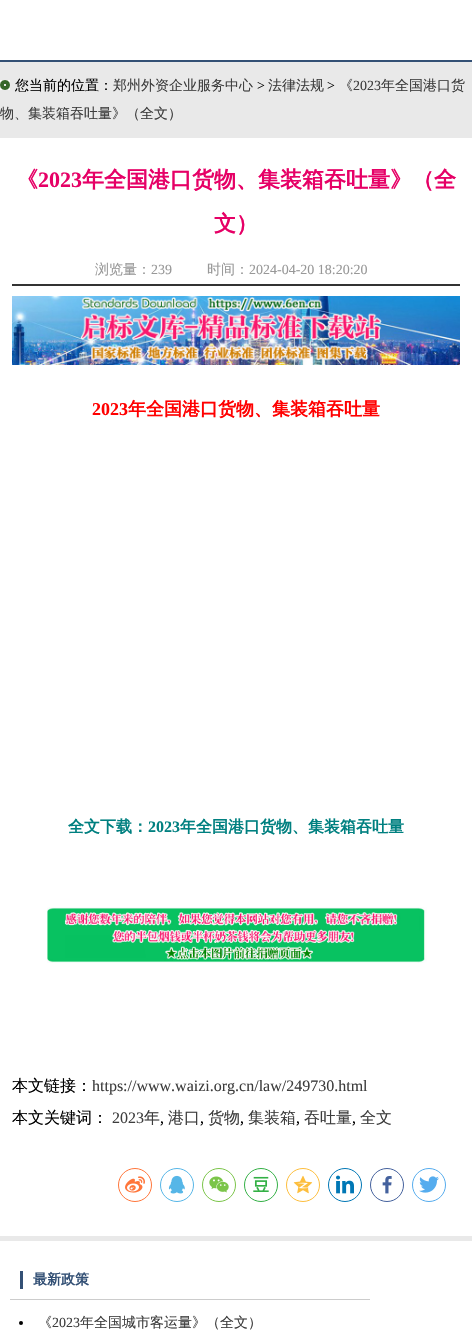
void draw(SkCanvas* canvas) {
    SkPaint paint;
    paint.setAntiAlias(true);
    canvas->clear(0xFFFFFFFF);
    paint.setColor(0xFF335075);
    canvas->drawRect(SkRect::MakeXYWH(0, 60, 472, 2), paint);
    paint.setColor(0xFFE9E9E9);
    canvas->drawRect(SkRect::MakeXYWH(0, 62, 472, 1179), paint);
    canvas->drawImageRect(SkImages::DeferredFromEncodedData(SkData::MakeFromFileName("img1.png")), SkRect::MakeXYWH(0, 80, 10, 10), SkSamplingOptions());
    SkFont font1(fontMgr->matchFamilyStyle("WenQuanYi Zen Hei", SkFontStyle(500, SkFontStyle::kNormal_Width, SkFontStyle::kUpright_Slant)), 14);
    font1.setSubpixel(true);
    paint.setColor(0xFF000000);
    canvas->drawString("您当前的位置：", 15, 90, font1, paint);
    paint.setColor(0xFF3D3D3D);
    canvas->drawString("郑州外资企业服务中心", 113, 90, font1, paint);
    SkFont font2(fontMgr->matchFamilyStyle("Liberation Serif", SkFontStyle::Normal()), 14);
    font2.setSubpixel(true);
    paint.setColor(0xFF000000);
    canvas->drawString(">", 257, 90, font2, paint);
    paint.setColor(0xFF3D3D3D);
    canvas->drawString("法律法规", 268, 90, font1, paint);
    paint.setColor(0xFF000000);
    canvas->drawString(">", 327, 90, font2, paint);
    paint.setColor(0xFF3D3D3D);
    canvas->drawString("《", 339, 90, font1, paint);
    canvas->drawString("2023", 353, 90, font2, paint);
    canvas->drawString("年全国港口货", 381, 90, font1, paint);
    canvas->drawString("物、集装箱吞吐量》（全文）", 0, 118, font1, paint);
    paint.setColor(0xFFFFFFFF);
    canvas->drawRect(SkRect::MakeXYWH(0, 138, 472, 1098), paint);
    paint.setColor(0xFF333333);
    canvas->drawRect(SkRect::MakeXYWH(12, 284, 448, 2), paint);
    SkFont font3(fontMgr->matchFamilyStyle("WenQuanYi Zen Hei", SkFontStyle::Bold()), 22);
    font3.setSubpixel(true);
    paint.setColor(0xFFE60066);
    canvas->drawString("《", 16, 187, font3, paint);
    SkFont font4(fontMgr->matchFamilyStyle("Liberation Serif", SkFontStyle::Bold()), 22);
    font4.setSubpixel(true);
    canvas->drawString("2023", 38, 187, font4, paint);
    canvas->drawString("年全国港口货物、集装箱吞吐量》（全", 82, 187, font3, paint);
    canvas->drawString("文）", 214, 231, font3, paint);
    paint.setColor(0xFF989898);
    canvas->drawString("浏览量：", 95, 274, font1, paint);
    canvas->drawString("239", 151, 274, font2, paint);
    canvas->drawString("时间：", 207, 274, font1, paint);
    canvas->drawString("2024-04-20 18:20:20", 249, 274, font2, paint);
    canvas->drawImageRect(SkImages::DeferredFromEncodedData(SkData::MakeFromFileName("img2.png")), SkRect::MakeXYWH(12, 296, 448, 69), SkSamplingOptions());
    SkFont font5(fontMgr->matchFamilyStyle("Liberation Serif", SkFontStyle::Bold()), 18);
    font5.setSubpixel(true);
    paint.setColor(0xFFFF0000);
    canvas->drawString("2023", 92, 415, font5, paint);
    SkFont font6(fontMgr->matchFamilyStyle("WenQuanYi Zen Hei", SkFontStyle::Bold()), 18);
    font6.setSubpixel(true);
    canvas->drawString("年全国港口货物、集装箱吞吐量", 128, 415, font6, paint);
    SkFont font7(fontMgr->matchFamilyStyle("WenQuanYi Zen Hei", SkFontStyle::Bold()), 16);
    font7.setSubpixel(true);
    paint.setColor(0xFF008080);
    canvas->drawString("全文下载：", 68, 832, font7, paint);
    SkFont font8(fontMgr->matchFamilyStyle("Liberation Serif", SkFontStyle::Bold()), 16);
    font8.setSubpixel(true);
    canvas->drawString("2023", 148, 832, font8, paint);
    canvas->drawString("年全国港口货物、集装箱吞吐量", 180, 832, font7, paint);
    canvas->drawImageRect(SkImages::DeferredFromEncodedData(SkData::MakeFromFileName("img3.png")), SkRect::MakeXYWH(47, 907, 380, 56), SkSamplingOptions());
    SkFont font9(fontMgr->matchFamilyStyle("WenQuanYi Zen Hei", SkFontStyle(500, SkFontStyle::kNormal_Width, SkFontStyle::kUpright_Slant)), 16);
    font9.setSubpixel(true);
    paint.setColor(0xFF000000);
    canvas->drawString("本文链接：", 12, 1091, font9, paint);
    SkFont font10(fontMgr->matchFamilyStyle("Liberation Serif", SkFontStyle::Normal()), 16);
    font10.setSubpixel(true);
    paint.setColor(0xFF3D3D3D);
    canvas->drawString("https://www.waizi.org.cn/law/249730.html", 92, 1091, font10, paint);
    paint.setColor(0xFF000000);
    canvas->drawString("本文关键词：", 12, 1123, font9, paint);
    paint.setColor(0xFF3D3D3D);
    canvas->drawString("2023", 112, 1123, font10, paint);
    canvas->drawString("年", 144, 1123, font9, paint);
    paint.setColor(0xFF000000);
    canvas->drawString(",", 160, 1123, font10, paint);
    paint.setColor(0xFF3D3D3D);
    canvas->drawString("港口", 168, 1123, font9, paint);
    paint.setColor(0xFF000000);
    canvas->drawString(",", 200, 1123, font10, paint);
    paint.setColor(0xFF3D3D3D);
    canvas->drawString("货物", 208, 1123, font9, paint);
    paint.setColor(0xFF000000);
    canvas->drawString(",", 240, 1123, font10, paint);
    paint.setColor(0xFF3D3D3D);
    canvas->drawString("集装箱", 248, 1123, font9, paint);
    paint.setColor(0xFF000000);
    canvas->drawString(",", 296, 1123, font10, paint);
    paint.setColor(0xFF3D3D3D);
    canvas->drawString("吞吐量", 304, 1123, font9, paint);
    paint.setColor(0xFF000000);
    canvas->drawString(",", 352, 1123, font10, paint);
    paint.setColor(0xFF3D3D3D);
    canvas->drawString("全文", 360, 1123, font9, paint);
    paint.setStyle(SkPaint::kStroke_Style);
    paint.setStrokeWidth(1);
    paint.setColor(0xFFFF763B);
    canvas->drawCircle(135, 1185, 16.5f, paint);
    canvas->drawImageRect(SkImages::DeferredFromEncodedData(SkData::MakeFromFileName("img4.png")), SkRect::MakeXYWH(125, 1176, 20, 17), SkSamplingOptions());
    paint.setColor(0xFF56B6E7);
    canvas->drawCircle(177, 1185, 16.5f, paint);
    canvas->drawImageRect(SkImages::DeferredFromEncodedData(SkData::MakeFromFileName("img5.png")), SkRect::MakeXYWH(168, 1175, 17, 19), SkSamplingOptions());
    paint.setColor(0xFF7BC549);
    canvas->drawCircle(219, 1185, 16.5f, paint);
    canvas->drawImageRect(SkImages::DeferredFromEncodedData(SkData::MakeFromFileName("img6.png")), SkRect::MakeXYWH(209, 1176, 20, 17), SkSamplingOptions());
    paint.setColor(0xFF33B045);
    canvas->drawCircle(261, 1185, 16.5f, paint);
    canvas->drawImageRect(SkImages::DeferredFromEncodedData(SkData::MakeFromFileName("img7.png")), SkRect::MakeXYWH(253, 1176, 16, 16), SkSamplingOptions());
    paint.setColor(0xFFFDBE3D);
    canvas->drawCircle(303, 1185, 16.5f, paint);
    canvas->drawImageRect(SkImages::DeferredFromEncodedData(SkData::MakeFromFileName("img8.png")), SkRect::MakeXYWH(293, 1175, 20, 19), SkSamplingOptions());
    paint.setColor(0xFF0077B5);
    canvas->drawCircle(345, 1185, 16.5f, paint);
    canvas->drawImageRect(SkImages::DeferredFromEncodedData(SkData::MakeFromFileName("img9.png")), SkRect::MakeXYWH(336, 1175, 18, 19), SkSamplingOptions());
    paint.setColor(0xFF44619D);
    canvas->drawCircle(387, 1185, 16.5f, paint);
    canvas->drawImageRect(SkImages::DeferredFromEncodedData(SkData::MakeFromFileName("img10.png")), SkRect::MakeXYWH(382, 1176, 10, 18), SkSamplingOptions());
    paint.setColor(0xFF55ACEE);
    canvas->drawCircle(429, 1185, 16.5f, paint);
    canvas->drawImageRect(SkImages::DeferredFromEncodedData(SkData::MakeFromFileName("img11.png")), SkRect::MakeXYWH(419, 1176, 20, 17), SkSamplingOptions());
    paint.setStyle(SkPaint::kFill_Style);
    paint.setColor(0xFFCCCCCC);
    canvas->drawRect(SkRect::MakeXYWH(10, 1299, 360, 1), paint);
    paint.setColor(0xFF335075);
    canvas->drawRect(SkRect::MakeXYWH(20, 1271, 3, 18), paint);
    SkFont font11(fontMgr->matchFamilyStyle("WenQuanYi Zen Hei", SkFontStyle::Bold()), 14);
    font11.setSubpixel(true);
    canvas->drawString("最新政策", 33, 1284, font11, paint);
    paint.setColor(0xFF000000);
    canvas->drawCircle(21, 1323, 2, paint);
    paint.setColor(0xFF3D3D3D);
    canvas->drawString("《", 38, 1327, font1, paint);
    canvas->drawString("2023", 52, 1327, font2, paint);
    canvas->drawString("年全国城市客运量》（全文）", 80, 1327, font1, paint);
}
